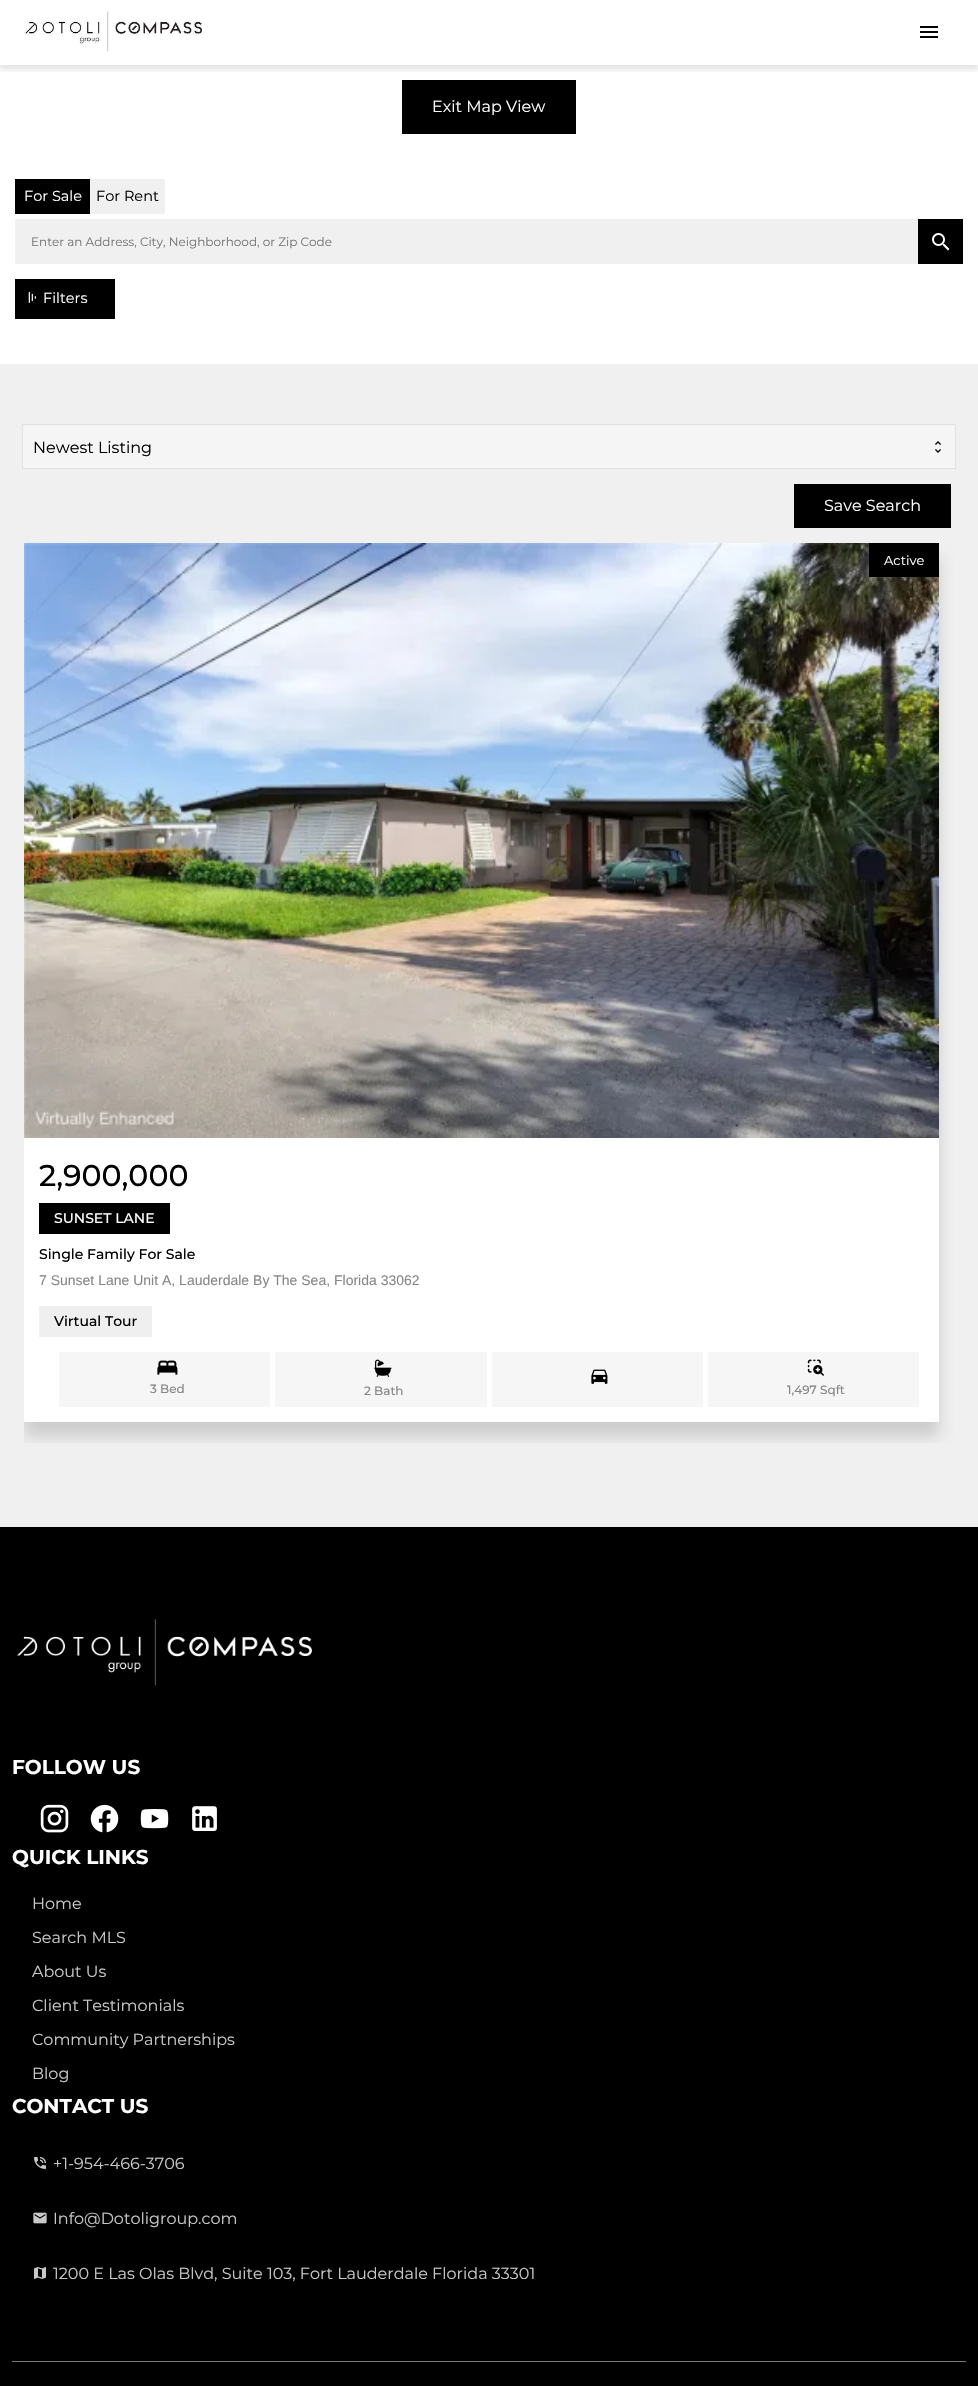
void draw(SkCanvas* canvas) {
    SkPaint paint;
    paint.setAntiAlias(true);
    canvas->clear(0xFFFFFFFF);
    canvas->save();
    canvas->clipRect(SkRect::MakeXYWH(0, 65, 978, 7));
    paint.setColor(0x1A000000);
    paint.setMaskFilter(SkMaskFilter::MakeBlur(kNormal_SkBlurStyle, 2.5f));
    canvas->drawRect(SkRect::MakeXYWH(0, 5, 978, 65), paint);
    paint.setMaskFilter(nullptr);
    canvas->restore();
    canvas->drawImageRect(SkImages::DeferredFromEncodedData(SkData::MakeFromFileName("img1.png")), SkRect::MakeXYWH(24, 10, 178, 42), SkSamplingOptions());
    canvas->drawImageRect(SkImages::DeferredFromEncodedData(SkData::MakeFromFileName("img2.png")), SkRect::MakeXYWH(920, 26, 18, 12), SkSamplingOptions());
    paint.setColor(0xFF000000);
    canvas->drawRect(SkRect::MakeXYWH(402, 80, 174, 54), paint);
    SkFont font1(fontMgr->matchFamilyStyle("Montserrat", SkFontStyle::Normal()), 16);
    font1.setSubpixel(true);
    paint.setColor(0xFFFFFFFF);
    canvas->drawString("Exit Map View", 432, 112, font1, paint);
    paint.setColor(0xFF000000);
    canvas->drawRect(SkRect::MakeXYWH(15, 179, 75, 35), paint);
    SkFont font2(fontMgr->matchFamilyStyle("Montserrat", SkFontStyle::Normal()), 14.5f);
    font2.setSubpixel(true);
    paint.setColor(0xFFFFFFFF);
    canvas->drawString("For Sale", 24, 201, font2, paint);
    paint.setColor(0xFFF0F0F0);
    canvas->drawRect(SkRect::MakeXYWH(90, 179, 75, 35), paint);
    paint.setColor(0xFF000000);
    canvas->drawString("For Rent", 96, 201, font2, paint);
    paint.setColor(0xFFF0F0F0);
    canvas->drawRect(SkRect::MakeXYWH(15, 219, 903, 45), paint);
    SkFont font3(fontMgr->matchFamilyStyle("Montserrat", SkFontStyle::Normal()), 12);
    font3.setSubpixel(true);
    paint.setColor(0xFF757575);
    canvas->drawString("Enter an Address, City, Neighborhood, or Zip Code", 31, 246, font3, paint);
    paint.setColor(0xFF000000);
    canvas->drawRect(SkRect::MakeXYWH(918, 219, 45, 45), paint);
    canvas->drawImageRect(SkImages::DeferredFromEncodedData(SkData::MakeFromFileName("img3.png")), SkRect::MakeXYWH(932, 233, 18, 18), SkSamplingOptions());
    canvas->drawRect(SkRect::MakeXYWH(15, 279, 100, 40), paint);
    canvas->drawImageRect(SkImages::DeferredFromEncodedData(SkData::MakeFromFileName("img4.png")), SkRect::MakeXYWH(28, 292, 8, 11), SkSamplingOptions());
    paint.setColor(0xFFFFFFFF);
    canvas->drawString("Filters", 43, 303, font2, paint);
    paint.setColor(0xFFF0F0F0);
    canvas->drawRect(SkRect::MakeXYWH(0, 364, 978, 1163), paint);
    paint.setColor(0xFFF5F5F5);
    canvas->drawRect(SkRect::MakeXYWH(22.5f, 424.5f, 933, 44), paint);
    paint.setStyle(SkPaint::kStroke_Style);
    paint.setStrokeWidth(1);
    paint.setColor(0xFFE1E1E1);
    canvas->drawRect(SkRect::MakeXYWH(22.5f, 424.5f, 933, 44), paint);
    paint.setStyle(SkPaint::kFill_Style);
    paint.setColor(0xFF000000);
    canvas->drawString("Newest Listing", 33, 453, font1, paint);
    canvas->drawImageRect(SkImages::DeferredFromEncodedData(SkData::MakeFromFileName("img5.png")), SkRect::MakeXYWH(935, 441, 6, 12), SkSamplingOptions());
    canvas->drawRect(SkRect::MakeXYWH(794, 484, 157, 44), paint);
    paint.setColor(0xFFFFFFFF);
    canvas->drawString("Save Search", 824, 511, font1, paint);
    canvas->save();
    canvas->clipRect(SkRect::MakeXYWH(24, 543, 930, 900));
    paint.setColor(0x26000000);
    paint.setMaskFilter(SkMaskFilter::MakeBlur(kNormal_SkBlurStyle, 7.5f));
    canvas->drawRect(SkRect::MakeXYWH(24, 558, 915, 879), paint);
    paint.setMaskFilter(nullptr);
    canvas->restore();
    paint.setColor(0xFFFFFFFF);
    canvas->drawRect(SkRect::MakeXYWH(24, 1138, 915, 284), paint);
    canvas->drawImageRect(SkImages::DeferredFromEncodedData(SkData::MakeFromFileName("img6.png")), SkRect::MakeXYWH(24, 543, 915, 595), SkSamplingOptions());
    paint.setColor(0xFF000000);
    canvas->drawRect(SkRect::MakeXYWH(869, 543, 70, 34), paint);
    SkFont font4(fontMgr->matchFamilyStyle("Montserrat", SkFontStyle::Normal()), 13);
    font4.setSubpixel(true);
    paint.setColor(0xFFFFFFFF);
    canvas->drawString("Active", 884, 565, font4, paint);
    SkFont font5(fontMgr->matchFamilyStyle("Montserrat", SkFontStyle(500, SkFontStyle::kNormal_Width, SkFontStyle::kUpright_Slant)), 30);
    font5.setSubpixel(true);
    paint.setColor(0xFF000000);
    canvas->drawString("2,900,000", 39, 1186, font5, paint);
    canvas->drawRect(SkRect::MakeXYWH(39, 1203, 131, 31), paint);
    SkFont font6(fontMgr->matchFamilyStyle("Montserrat", SkFontStyle(500, SkFontStyle::kNormal_Width, SkFontStyle::kUpright_Slant)), 14);
    font6.setSubpixel(true);
    paint.setColor(0xFFFFFFFF);
    canvas->drawString("SUNSET LANE", 54, 1223, font6, paint);
    paint.setColor(0xFF000000);
    canvas->drawString("Single Family For Sale", 39, 1259, font6, paint);
    SkFont font7(fontMgr->matchFamilyStyle("Liberation Sans", SkFontStyle::Normal()), 14);
    font7.setSubpixel(true);
    paint.setColor(0xFF878787);
    canvas->drawString("7 Sunset Lane Unit A, Lauderdale By The Sea, Florida 33062", 39, 1285, font7, paint);
    paint.setColor(0xFFEFEFEF);
    canvas->drawRect(SkRect::MakeXYWH(39, 1306, 113, 31), paint);
    paint.setColor(0xFF000000);
    canvas->drawString("Virtual Tour", 54, 1326, font6, paint);
    paint.setColor(0xFFF6F6F6);
    canvas->drawRect(SkRect::MakeXYWH(59, 1352, 211, 55), paint);
    canvas->drawImageRect(SkImages::DeferredFromEncodedData(SkData::MakeFromFileName("img7.png")), SkRect::MakeXYWH(157, 1360, 21, 15), SkSamplingOptions());
    SkFont font8(fontMgr->matchFamilyStyle("Montserrat", SkFontStyle(500, SkFontStyle::kNormal_Width, SkFontStyle::kUpright_Slant)), 12);
    font8.setSubpixel(true);
    paint.setColor(0xFF878787);
    canvas->drawString("3 Bed", 150, 1393, font8, paint);
    paint.setColor(0xFFF6F6F6);
    canvas->drawRect(SkRect::MakeXYWH(275, 1352, 212, 55), paint);
    canvas->drawImageRect(SkImages::DeferredFromEncodedData(SkData::MakeFromFileName("img8.png")), SkRect::MakeXYWH(374, 1359, 18, 18), SkSamplingOptions());
    paint.setColor(0xFF878787);
    canvas->drawString("2 Bath", 364, 1395, font8, paint);
    paint.setColor(0xFFF6F6F6);
    canvas->drawRect(SkRect::MakeXYWH(492, 1352, 211, 55), paint);
    canvas->drawImageRect(SkImages::DeferredFromEncodedData(SkData::MakeFromFileName("img9.png")), SkRect::MakeXYWH(591, 1369, 17, 15), SkSamplingOptions());
    canvas->drawRect(SkRect::MakeXYWH(708, 1352, 211, 55), paint);
    canvas->drawImageRect(SkImages::DeferredFromEncodedData(SkData::MakeFromFileName("img10.png")), SkRect::MakeXYWH(807, 1359, 17, 17), SkSamplingOptions());
    paint.setColor(0xFF878787);
    canvas->drawString("1,497 Sqft", 787, 1394, font8, paint);
    paint.setColor(0xFF000000);
    canvas->drawRect(SkRect::MakeXYWH(0, 1527, 978, 859), paint);
    canvas->drawImageRect(SkImages::DeferredFromEncodedData(SkData::MakeFromFileName("img11.png")), SkRect::MakeXYWH(17, 1619, 295, 67), SkSamplingOptions());
    SkFont font9(fontMgr->matchFamilyStyle("Montserrat", SkFontStyle::Bold()), 20);
    font9.setSubpixel(true);
    paint.setColor(0xFFFFFFFF);
    canvas->drawString("FOLLOW US", 12, 1774, font9, paint);
    canvas->drawImageRect(SkImages::DeferredFromEncodedData(SkData::MakeFromFileName("img12.png")), SkRect::MakeXYWH(40, 1804, 29, 29), SkSamplingOptions());
    canvas->drawImageRect(SkImages::DeferredFromEncodedData(SkData::MakeFromFileName("img13.png")), SkRect::MakeXYWH(90, 1804, 29, 29), SkSamplingOptions());
    canvas->drawImageRect(SkImages::DeferredFromEncodedData(SkData::MakeFromFileName("img14.png")), SkRect::MakeXYWH(140, 1809, 29, 20), SkSamplingOptions());
    canvas->drawImageRect(SkImages::DeferredFromEncodedData(SkData::MakeFromFileName("img15.png")), SkRect::MakeXYWH(192, 1806, 25, 25), SkSamplingOptions());
    canvas->drawString("QUICK LINKS", 12, 1864, font9, paint);
    paint.setColor(0xFFC8C8C8);
    canvas->drawString("Home", 32, 1909, font1, paint);
    canvas->drawString("Search MLS", 32, 1943, font1, paint);
    canvas->drawString("About Us", 32, 1977, font1, paint);
    canvas->drawString("Client Testimonials", 32, 2011, font1, paint);
    canvas->drawString("Community Partnerships", 32, 2045, font1, paint);
    canvas->drawString("Blog", 32, 2079, font1, paint);
    paint.setColor(0xFFFFFFFF);
    canvas->drawString("CONTACT US", 12, 2113, font9, paint);
    canvas->drawImageRect(SkImages::DeferredFromEncodedData(SkData::MakeFromFileName("img16.png")), SkRect::MakeXYWH(34, 2157, 12, 12), SkSamplingOptions());
    paint.setColor(0xFFC8C8C8);
    canvas->drawString("+1-954-466-3706", 53, 2169, font1, paint);
    canvas->drawImageRect(SkImages::DeferredFromEncodedData(SkData::MakeFromFileName("img17.png")), SkRect::MakeXYWH(33, 2212, 14, 12), SkSamplingOptions());
    canvas->drawString("Info@Dotoligroup.com", 53, 2224, font1, paint);
    canvas->drawImageRect(SkImages::DeferredFromEncodedData(SkData::MakeFromFileName("img18.png")), SkRect::MakeXYWH(34, 2267, 12, 12), SkSamplingOptions());
    canvas->drawString("1200 E Las Olas Blvd, Suite 103, Fort Lauderdale Florida 33301", 53, 2279, font1, paint);
    paint.setColor(0xFF787878);
    canvas->drawRect(SkRect::MakeXYWH(12, 2361, 954, 1), paint);
}
